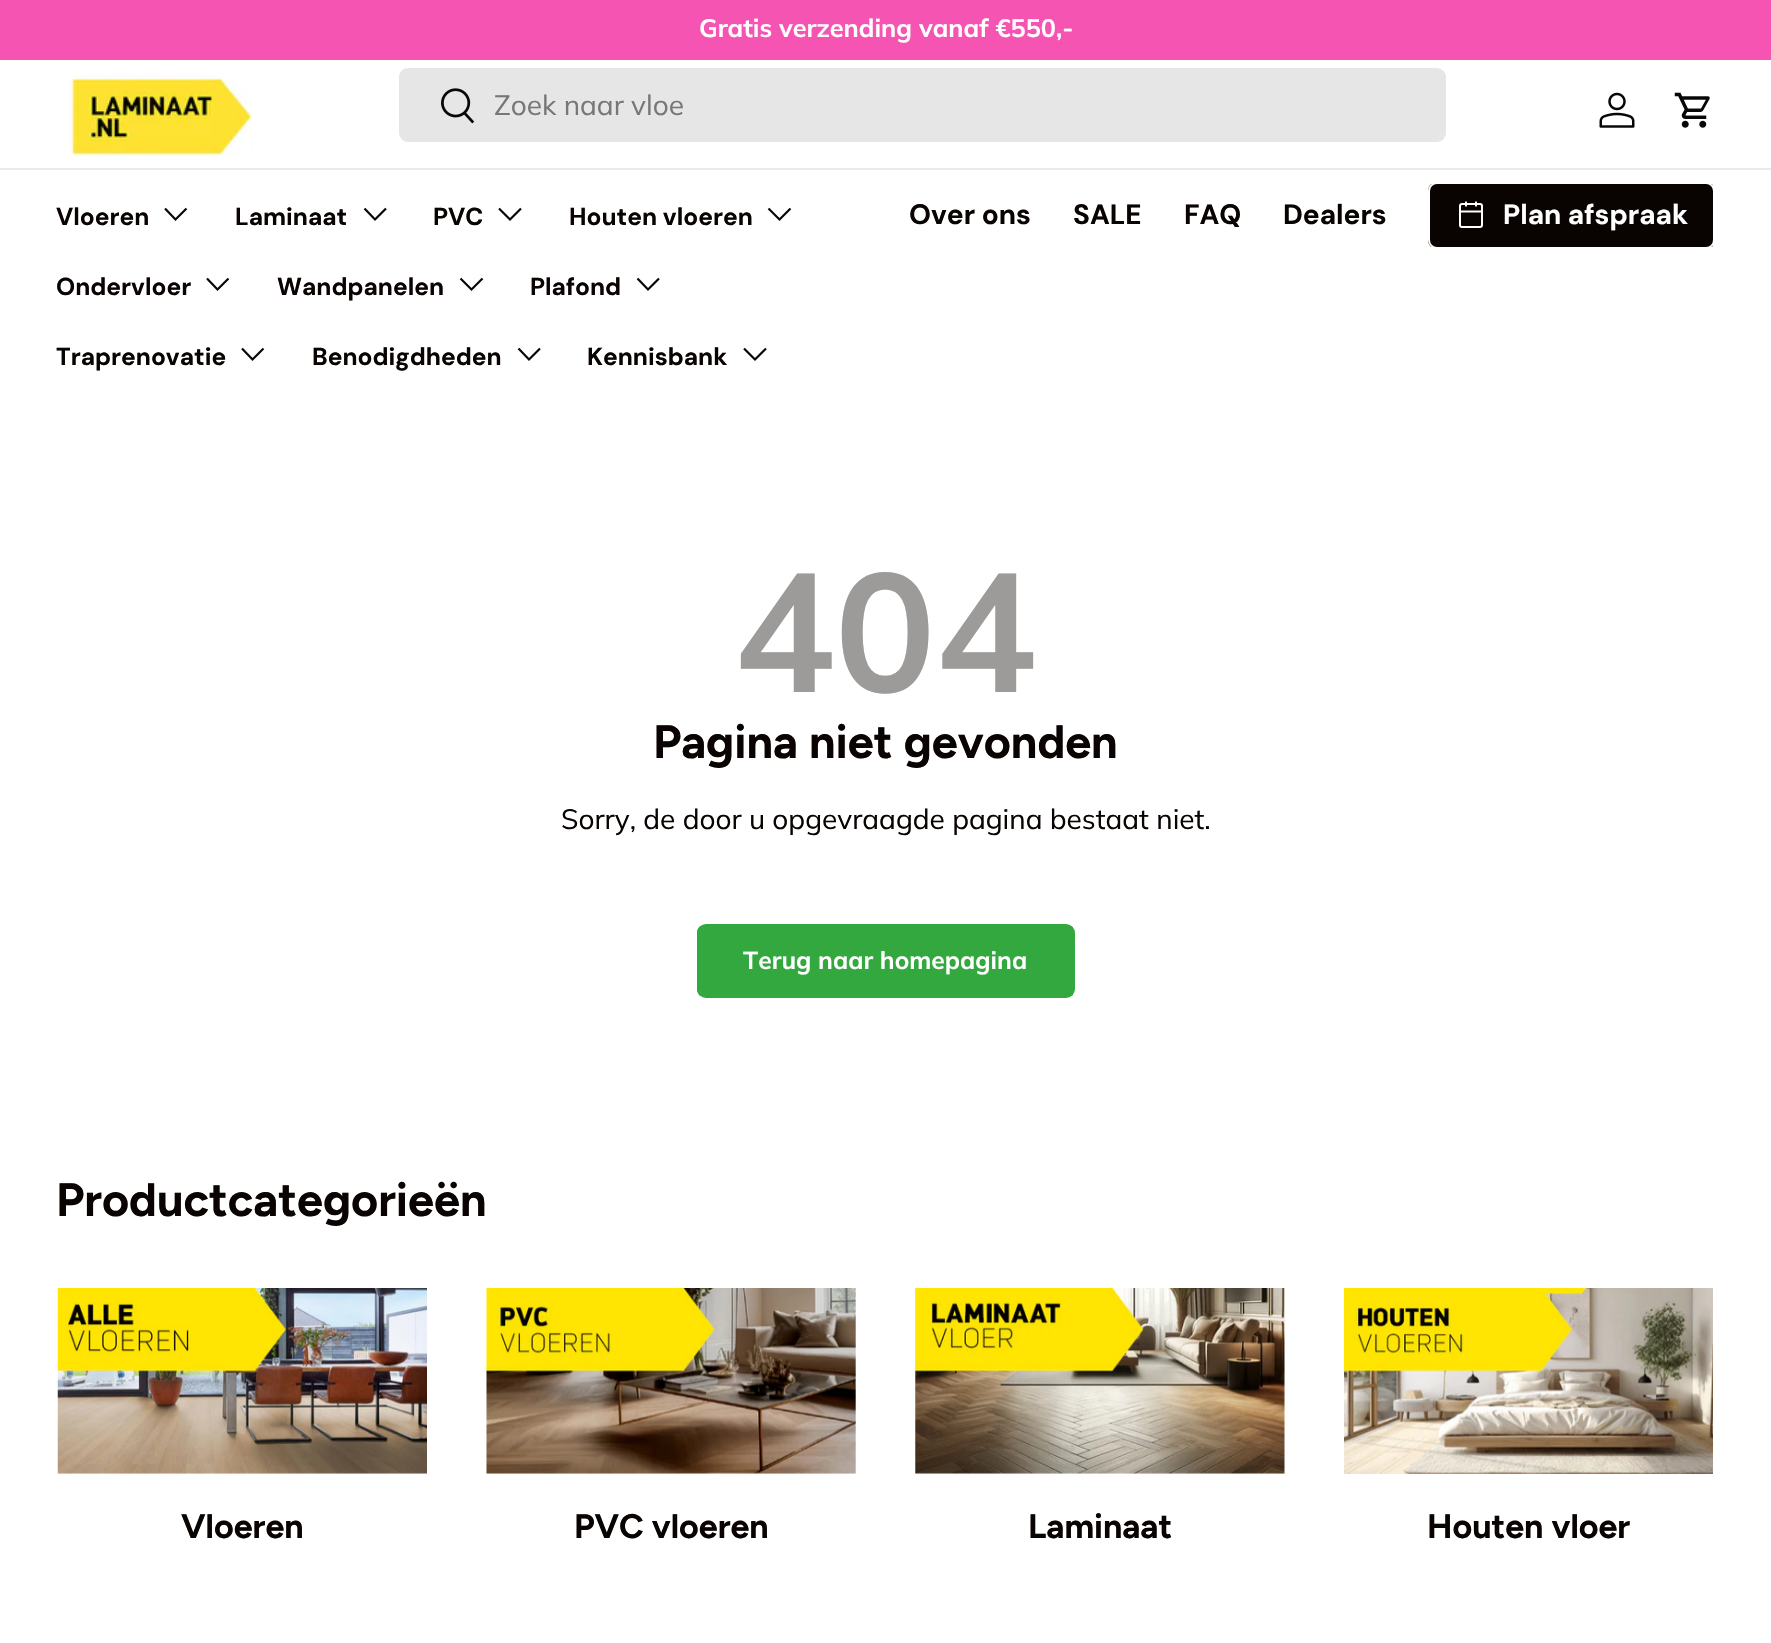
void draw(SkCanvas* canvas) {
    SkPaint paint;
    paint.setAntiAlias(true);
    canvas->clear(0xFFFFFFFF);
    paint.setColor(0xFFF654B3);
    canvas->drawRect(SkRect::MakeXYWH(0, 0, 1771, 60), paint);
    SkFont font1(fontMgr->matchFamilyStyle("Muli", SkFontStyle::Bold()), 25.25f);
    font1.setSubpixel(true);
    paint.setColor(0xFFFFFFFF);
    canvas->drawString("Gratis verzending vanaf €550,-", 699, 37, font1, paint);
    canvas->drawImageRect(SkImages::DeferredFromEncodedData(SkData::MakeFromFileName("img1.png")), SkRect::MakeXYWH(70, 70, 183, 87), SkSamplingOptions());
    paint.setColor(0xFFE6E6E6);
    canvas->drawRoundRect(SkRect::MakeXYWH(399, 68, 1047, 74), 9, 9, paint);
    canvas->drawImageRect(SkImages::DeferredFromEncodedData(SkData::MakeFromFileName("img2.png")), SkRect::MakeXYWH(441, 88, 34, 36), SkSamplingOptions());
    SkFont font2(fontMgr->matchFamilyStyle("Muli", SkFontStyle::Normal()), 28);
    font2.setSubpixel(true);
    paint.setColor(0xFF777777);
    canvas->drawString("Zoek naar vloe", 494, 115, font2, paint);
    canvas->drawImageRect(SkImages::DeferredFromEncodedData(SkData::MakeFromFileName("img3.png")), SkRect::MakeXYWH(1599, 92, 36, 36), SkSamplingOptions());
    canvas->drawImageRect(SkImages::DeferredFromEncodedData(SkData::MakeFromFileName("img4.png")), SkRect::MakeXYWH(1674, 92, 36, 36), SkSamplingOptions());
    paint.setColor(0xFFEAEAEA);
    canvas->drawRect(SkRect::MakeXYWH(0, 168, 1771, 2), paint);
    SkFont font3(fontMgr->matchFamilyStyle("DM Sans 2", SkFontStyle::Bold()), 24.5f);
    font3.setSubpixel(true);
    paint.setColor(0xFF090302);
    canvas->drawString("Vloeren", 56, 225, font3, paint);
    paint.setStyle(SkPaint::kStroke_Style);
    paint.setStrokeWidth(2.2f);
    paint.setColor(0xFF070707);
    canvas->drawPath(SkPathBuilder().moveTo(186.5f, 208.5f).lineTo(175.5f, 219.5f).lineTo(165, 208.5f).detach(), paint);
    paint.setStyle(SkPaint::kFill_Style);
    paint.setColor(0xFF090302);
    canvas->drawString("Laminaat", 235, 225, font3, paint);
    paint.setStyle(SkPaint::kStroke_Style);
    paint.setColor(0xFF070707);
    canvas->drawPath(SkPathBuilder().moveTo(386, 208.5f).lineTo(375, 219.5f).lineTo(364.5f, 208.5f).detach(), paint);
    paint.setStyle(SkPaint::kFill_Style);
    paint.setColor(0xFF090302);
    canvas->drawString("PVC", 433, 225, font3, paint);
    paint.setStyle(SkPaint::kStroke_Style);
    paint.setColor(0xFF070707);
    canvas->drawPath(SkPathBuilder().moveTo(521, 208.5f).lineTo(510, 219.5f).lineTo(499, 208.5f).detach(), paint);
    paint.setStyle(SkPaint::kFill_Style);
    paint.setColor(0xFF090302);
    canvas->drawString("Houten vloeren", 569, 225, font3, paint);
    paint.setStyle(SkPaint::kStroke_Style);
    paint.setColor(0xFF070707);
    canvas->drawPath(SkPathBuilder().moveTo(790.5f, 208.5f).lineTo(779.5f, 219.5f).lineTo(768.5f, 208.5f).detach(), paint);
    paint.setStyle(SkPaint::kFill_Style);
    paint.setColor(0xFF090302);
    canvas->drawString("Ondervloer", 56, 295, font3, paint);
    paint.setStyle(SkPaint::kStroke_Style);
    paint.setColor(0xFF070707);
    canvas->drawPath(SkPathBuilder().moveTo(228.5f, 278.5f).lineTo(217.5f, 289.5f).lineTo(207, 278.5f).detach(), paint);
    paint.setStyle(SkPaint::kFill_Style);
    paint.setColor(0xFF090302);
    canvas->drawString("Wandpanelen", 277, 295, font3, paint);
    paint.setStyle(SkPaint::kStroke_Style);
    paint.setColor(0xFF070707);
    canvas->drawPath(SkPathBuilder().moveTo(482.5f, 278.5f).lineTo(471.5f, 289.5f).lineTo(460.5f, 278.5f).detach(), paint);
    paint.setStyle(SkPaint::kFill_Style);
    paint.setColor(0xFF090302);
    canvas->drawString("Plafond", 530, 295, font3, paint);
    paint.setStyle(SkPaint::kStroke_Style);
    paint.setColor(0xFF070707);
    canvas->drawPath(SkPathBuilder().moveTo(659, 278.5f).lineTo(648, 289.5f).lineTo(637.5f, 278.5f).detach(), paint);
    paint.setStyle(SkPaint::kFill_Style);
    paint.setColor(0xFF090302);
    canvas->drawString("Traprenovatie", 56, 365, font3, paint);
    paint.setStyle(SkPaint::kStroke_Style);
    paint.setColor(0xFF070707);
    canvas->drawPath(SkPathBuilder().moveTo(263.5f, 348.5f).lineTo(252.5f, 359.5f).lineTo(242, 348.5f).detach(), paint);
    paint.setStyle(SkPaint::kFill_Style);
    paint.setColor(0xFF090302);
    canvas->drawString("Benodigdheden", 312, 365, font3, paint);
    paint.setStyle(SkPaint::kStroke_Style);
    paint.setColor(0xFF070707);
    canvas->drawPath(SkPathBuilder().moveTo(540, 348.5f).lineTo(529, 359.5f).lineTo(518.5f, 348.5f).detach(), paint);
    paint.setStyle(SkPaint::kFill_Style);
    paint.setColor(0xFF090302);
    canvas->drawString("Kennisbank", 587, 365, font3, paint);
    paint.setStyle(SkPaint::kStroke_Style);
    paint.setColor(0xFF070707);
    canvas->drawPath(SkPathBuilder().moveTo(766, 348.5f).lineTo(755, 359.5f).lineTo(744, 348.5f).detach(), paint);
    SkFont font4(fontMgr->matchFamilyStyle("DM Sans", SkFontStyle::Bold()), 28);
    font4.setSubpixel(true);
    paint.setStyle(SkPaint::kFill_Style);
    paint.setColor(0xFF090302);
    canvas->drawString("Over ons", 909, 224, font4, paint);
    canvas->drawString("SALE", 1073, 224, font4, paint);
    canvas->drawString("FAQ", 1184, 224, font4, paint);
    canvas->drawString("Dealers", 1283, 224, font4, paint);
    canvas->save();
    canvas->clipPath(SkPathBuilder().moveTo(1437, 182).lineTo(1706, 182).cubicTo(1711, 182, 1715, 186, 1715, 191).lineTo(1715, 240).cubicTo(1715, 245, 1711, 249, 1706, 249).lineTo(1437, 249).cubicTo(1432, 249, 1428, 245, 1428, 240).lineTo(1428, 191).cubicTo(1428, 186, 1432, 182, 1437, 182).close().detach(), true);
    {
        const SkColor colors[] = {0xFF36302F, 0xFF090302, 0xFF090302};
        const float stops[] = {0.6f, 0.6f, 1};
        const SkPoint ends[] = {{880, 114}, {1696, 317}};
        paint.setShader(SkGradientShader::MakeLinear(ends, colors, stops, 3, SkTileMode::kClamp));
        paint.setAlpha(255);
    }
    canvas->drawRect(SkRect::MakeXYWH(1428, 184, 285, 63), paint);
    canvas->restore();
    paint.setStyle(SkPaint::kStroke_Style);
    paint.setStrokeWidth(2);
    paint.setShader(nullptr);
    paint.setColor(0xFFFFFFFF);
    canvas->drawRoundRect(SkRect::MakeXYWH(1429, 183, 285, 65), 8, 8, paint);
    canvas->drawRoundRect(SkRect::MakeXYWH(1460, 204, 22, 23), 2, 2, paint);
    paint.setStrokeWidth(1.9f);
    canvas->drawPath(SkPathBuilder().moveTo(1476, 201.5f).lineTo(1476, 206.5f).moveTo(1466, 201.5f).lineTo(1466, 206.5f).moveTo(1459.5f, 211.5f).lineTo(1482, 211.5f).detach(), paint);
    paint.setStyle(SkPaint::kFill_Style);
    canvas->drawString("Plan afspraak", 1503, 224, font4, paint);
    SkFont font5(fontMgr->matchFamilyStyle("Muli", SkFontStyle::Bold()), 168);
    font5.setSubpixel(true);
    paint.setColor(0xFF9D9A9A);
    canvas->drawString("404", 734, 692, font5, paint);
    SkFont font6(fontMgr->matchFamilyStyle("Figtree", SkFontStyle::Bold()), 46.75f);
    font6.setSubpixel(true);
    paint.setColor(0xFF090302);
    canvas->drawString("Pagina niet gevonden", 653, 758, font6, paint);
    canvas->drawString("Sorry, de door u opgevraagde pagina bestaat niet.", 561, 829, font2, paint);
    canvas->save();
    canvas->clipPath(SkPathBuilder().moveTo(706, 924).lineTo(1066, 924).cubicTo(1071, 924, 1075, 928, 1075, 933).lineTo(1075, 989).cubicTo(1075, 994, 1071, 998, 1066, 998).lineTo(706, 998).cubicTo(701, 998, 697, 994, 697, 989).lineTo(697, 933).cubicTo(697, 928, 701, 924, 706, 924).close().detach(), true);
    {
        const SkColor colors[] = {0xFF5DBA66, 0xFF33A83F, 0xFF33A83F};
        const float stops[] = {0.6f, 0.6f, 1};
        const SkPoint ends[] = {{-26, 827}, {1048, 1095}};
        paint.setShader(SkGradientShader::MakeLinear(ends, colors, stops, 3, SkTileMode::kClamp));
        paint.setAlpha(255);
    }
    canvas->drawRect(SkRect::MakeXYWH(697, 926, 376, 70), paint);
    canvas->restore();
    paint.setStyle(SkPaint::kStroke_Style);
    paint.setStrokeWidth(2);
    paint.setShader(nullptr);
    paint.setColor(0xFF33A83F);
    canvas->drawRoundRect(SkRect::MakeXYWH(698, 925, 376, 72), 8, 8, paint);
    SkFont font7(fontMgr->matchFamilyStyle("Muli", SkFontStyle::Bold()), 24.6f);
    font7.setSubpixel(true);
    paint.setStyle(SkPaint::kFill_Style);
    paint.setColor(0xFFFFFFFF);
    canvas->drawString("Terug naar homepagina", 743, 969, font7, paint);
    paint.setColor(0xFF090302);
    canvas->drawString("Productcategorieën", 56, 1216, font6, paint);
    paint.setColor(0xFFF7F7F7);
    canvas->drawRect(SkRect::MakeXYWH(58, 1472, 369, 2), paint);
    canvas->drawImageRect(SkImages::DeferredFromEncodedData(SkData::MakeFromFileName("img5.png")), SkRect::MakeXYWH(57, 1288, 370, 186), SkSamplingOptions());
    SkFont font8(fontMgr->matchFamilyStyle("Figtree", SkFontStyle::Bold()), 34);
    font8.setSubpixel(true);
    paint.setColor(0xFF090302);
    canvas->drawString("Vloeren", 181, 1538, font8, paint);
    paint.setColor(0xFFF7F7F7);
    canvas->drawRect(SkRect::MakeXYWH(487, 1288, 369, 186), paint);
    canvas->drawImageRect(SkImages::DeferredFromEncodedData(SkData::MakeFromFileName("img6.png")), SkRect::MakeXYWH(486, 1288, 370, 186), SkSamplingOptions());
    paint.setColor(0xFF090302);
    canvas->drawString("PVC vloeren", 574, 1538, font8, paint);
    paint.setColor(0xFFF7F7F7);
    canvas->drawRect(SkRect::MakeXYWH(915, 1288, 370, 186), paint);
    canvas->drawImageRect(SkImages::DeferredFromEncodedData(SkData::MakeFromFileName("img7.png")), SkRect::MakeXYWH(915, 1288, 370, 186), SkSamplingOptions());
    paint.setColor(0xFF090302);
    canvas->drawString("Laminaat", 1028, 1538, font8, paint);
    canvas->drawImageRect(SkImages::DeferredFromEncodedData(SkData::MakeFromFileName("img8.png")), SkRect::MakeXYWH(1344, 1288, 369, 186), SkSamplingOptions());
    canvas->drawString("Houten vloer", 1427, 1538, font8, paint);
}
